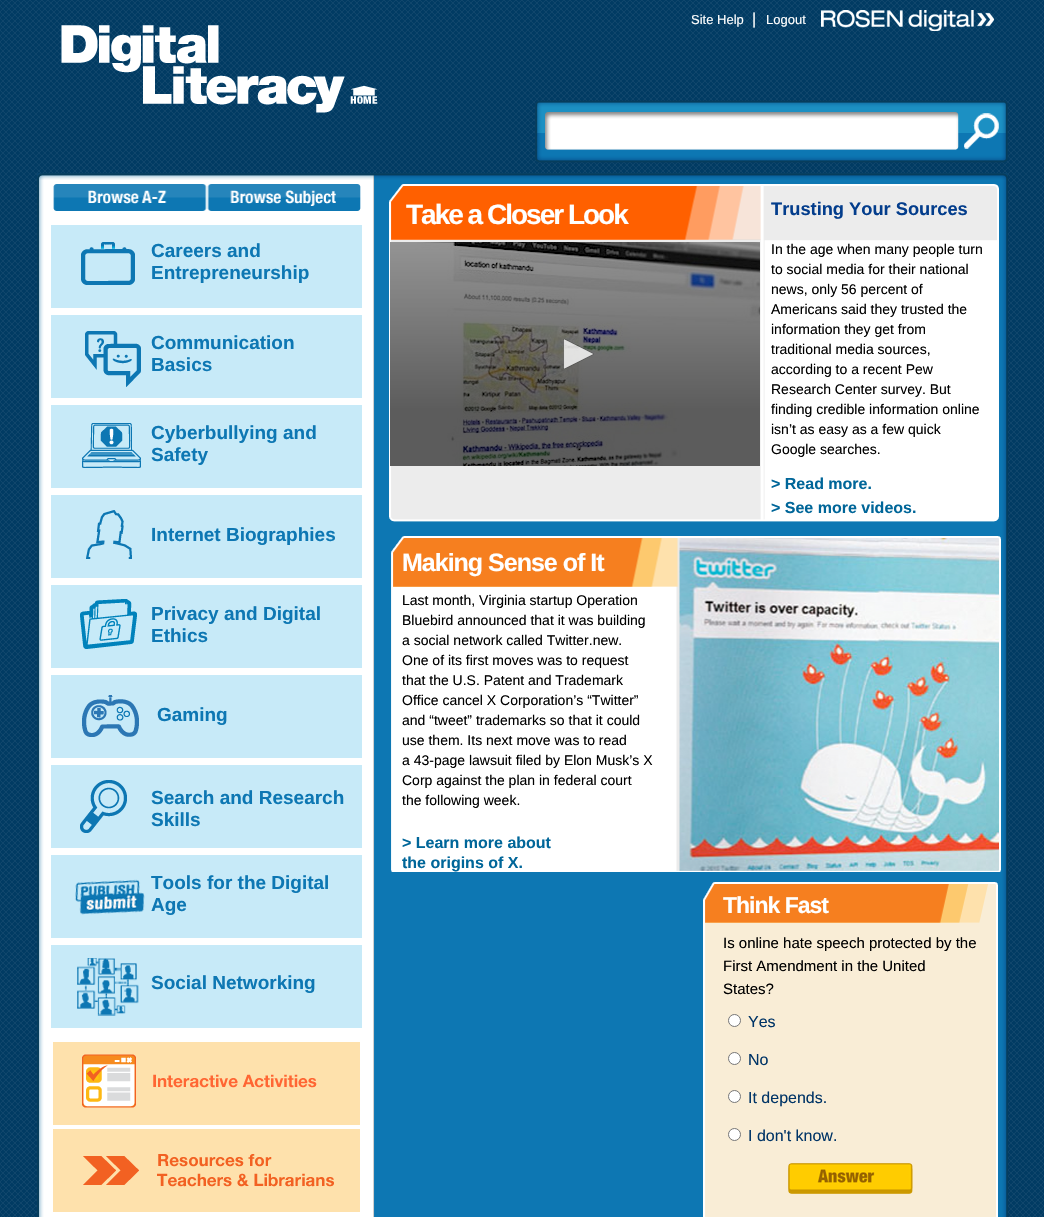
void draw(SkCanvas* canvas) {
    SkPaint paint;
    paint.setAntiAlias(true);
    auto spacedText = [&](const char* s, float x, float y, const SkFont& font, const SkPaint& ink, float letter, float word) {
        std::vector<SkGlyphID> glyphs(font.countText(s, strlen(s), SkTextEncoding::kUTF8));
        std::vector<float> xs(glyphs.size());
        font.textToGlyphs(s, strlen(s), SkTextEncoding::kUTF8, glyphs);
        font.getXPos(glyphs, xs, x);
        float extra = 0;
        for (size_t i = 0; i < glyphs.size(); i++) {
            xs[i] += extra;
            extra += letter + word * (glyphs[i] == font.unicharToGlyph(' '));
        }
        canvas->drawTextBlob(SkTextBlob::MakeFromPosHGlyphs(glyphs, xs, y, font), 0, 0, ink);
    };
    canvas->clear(0xFFFFFFFF);
    canvas->drawImageRect(SkImages::DeferredFromEncodedData(SkData::MakeFromFileName("img1.png")), SkRect::MakeXYWH(0, 0, 1044, 1217), SkSamplingOptions());
    SkFont font1(fontMgr->matchFamilyStyle("Liberation Sans", SkFontStyle::Normal()), 13);
    font1.setSubpixel(true);
    paint.setColor(0xFFFFFFFF);
    canvas->drawString("Site Help", 691, 24, font1, paint);
    SkFont font2(fontMgr->matchFamilyStyle("Liberation Sans", SkFontStyle::Normal()), 16);
    font2.setSubpixel(true);
    canvas->drawString("|", 752, 24, font2, paint);
    canvas->drawString("Logout", 766, 24, font1, paint);
    canvas->drawImageRect(SkImages::DeferredFromEncodedData(SkData::MakeFromFileName("img2.png")), SkRect::MakeXYWH(821, 10, 173, 21), SkSamplingOptions());
    canvas->drawImageRect(SkImages::DeferredFromEncodedData(SkData::MakeFromFileName("img3.png")), SkRect::MakeXYWH(61, 25, 317, 88), SkSamplingOptions());
    canvas->drawImageRect(SkImages::DeferredFromEncodedData(SkData::MakeFromFileName("img4.png")), SkRect::MakeXYWH(535, 100, 473, 63), SkSamplingOptions());
    canvas->drawImageRect(SkImages::DeferredFromEncodedData(SkData::MakeFromFileName("img6.png")), SkRect::MakeXYWH(37, 180, 971, 1037), SkSamplingOptions());
    canvas->drawImageRect(SkImages::DeferredFromEncodedData(SkData::MakeFromFileName("img5.png")), SkRect::MakeXYWH(53, 184, 308, 27), SkSamplingOptions());
    canvas->drawImageRect(SkImages::DeferredFromEncodedData(SkData::MakeFromFileName("img7.png")), SkRect::MakeXYWH(37, 173, 971, 7), SkSamplingOptions());
    canvas->drawImageRect(SkImages::DeferredFromEncodedData(SkData::MakeFromFileName("img8.png")), SkRect::MakeXYWH(51, 225, 311, 83), SkSamplingOptions());
    SkFont font3(fontMgr->matchFamilyStyle("Liberation Sans", SkFontStyle::Bold()), 19);
    font3.setSubpixel(true);
    paint.setColor(0xFF0D77B3);
    canvas->drawString("Careers and", 151, 257, font3, paint);
    canvas->drawString("Entrepreneurship", 151, 279, font3, paint);
    canvas->drawImageRect(SkImages::DeferredFromEncodedData(SkData::MakeFromFileName("img9.png")), SkRect::MakeXYWH(51, 315, 311, 83), SkSamplingOptions());
    canvas->drawString("Communication", 151, 349, font3, paint);
    canvas->drawString("Basics", 151, 371, font3, paint);
    canvas->drawImageRect(SkImages::DeferredFromEncodedData(SkData::MakeFromFileName("img10.png")), SkRect::MakeXYWH(51, 405, 311, 83), SkSamplingOptions());
    canvas->drawString("Cyberbullying and", 151, 439, font3, paint);
    canvas->drawString("Safety", 151, 461, font3, paint);
    canvas->drawImageRect(SkImages::DeferredFromEncodedData(SkData::MakeFromFileName("img11.png")), SkRect::MakeXYWH(51, 495, 311, 83), SkSamplingOptions());
    canvas->drawString("Internet Biographies", 151, 541, font3, paint);
    canvas->drawImageRect(SkImages::DeferredFromEncodedData(SkData::MakeFromFileName("img12.png")), SkRect::MakeXYWH(51, 585, 311, 83), SkSamplingOptions());
    canvas->drawString("Privacy and Digital", 151, 620, font3, paint);
    canvas->drawString("Ethics", 151, 642, font3, paint);
    canvas->drawImageRect(SkImages::DeferredFromEncodedData(SkData::MakeFromFileName("img13.png")), SkRect::MakeXYWH(51, 675, 311, 83), SkSamplingOptions());
    canvas->drawString("Gaming", 157, 721, font3, paint);
    canvas->drawImageRect(SkImages::DeferredFromEncodedData(SkData::MakeFromFileName("img14.png")), SkRect::MakeXYWH(51, 765, 311, 83), SkSamplingOptions());
    canvas->drawString("Search and Research", 151, 804, font3, paint);
    canvas->drawString("Skills", 151, 826, font3, paint);
    canvas->drawImageRect(SkImages::DeferredFromEncodedData(SkData::MakeFromFileName("img15.png")), SkRect::MakeXYWH(51, 855, 311, 83), SkSamplingOptions());
    canvas->drawString("Tools for the Digital", 151, 889, font3, paint);
    canvas->drawString("Age", 151, 911, font3, paint);
    canvas->drawImageRect(SkImages::DeferredFromEncodedData(SkData::MakeFromFileName("img16.png")), SkRect::MakeXYWH(51, 945, 311, 83), SkSamplingOptions());
    canvas->drawString("Social Networking", 151, 989, font3, paint);
    canvas->drawImageRect(SkImages::DeferredFromEncodedData(SkData::MakeFromFileName("img17.png")), SkRect::MakeXYWH(53, 1042, 307, 83), SkSamplingOptions());
    canvas->drawImageRect(SkImages::DeferredFromEncodedData(SkData::MakeFromFileName("img18.png")), SkRect::MakeXYWH(53, 1129, 307, 83), SkSamplingOptions());
    canvas->drawImageRect(SkImages::DeferredFromEncodedData(SkData::MakeFromFileName("img19.png")), SkRect::MakeXYWH(389, 184, 610, 338), SkSamplingOptions());
    SkFont font4(fontMgr->matchFamilyStyle("Liberation Sans", SkFontStyle::Bold()), 28);
    font4.setSubpixel(true);
    paint.setColor(0xFFFFFFFF);
    spacedText("Take a Closer Look", 406, 224, font4, paint, -2, 0);
    canvas->drawImageRect(SkImages::DeferredFromEncodedData(SkData::MakeFromFileName("img20.png")), SkRect::MakeXYWH(390, 242, 370, 224), SkSamplingOptions());
    canvas->drawImageRect(SkImages::DeferredFromEncodedData(SkData::MakeFromFileName("img21.png")), SkRect::MakeXYWH(563, 338, 31, 32), SkSamplingOptions());
    SkFont font5(fontMgr->matchFamilyStyle("Liberation Sans", SkFontStyle::Bold()), 18.25f);
    font5.setSubpixel(true);
    paint.setColor(0xFF033D8C);
    canvas->drawString("Trusting Your Sources", 771, 215, font5, paint);
    SkFont font6(fontMgr->matchFamilyStyle("Liberation Sans", SkFontStyle::Normal()), 14);
    font6.setSubpixel(true);
    paint.setColor(0xFF000000);
    canvas->drawString("In the age when many people turn", 771, 254, font6, paint);
    canvas->drawString("to social media for their national", 771, 274, font6, paint);
    canvas->drawString("news, only 56 percent of", 771, 294, font6, paint);
    canvas->drawString("Americans said they trusted the", 771, 314, font6, paint);
    canvas->drawString("information they get from", 771, 334, font6, paint);
    canvas->drawString("traditional media sources,", 771, 354, font6, paint);
    canvas->drawString("according to a recent Pew", 771, 374, font6, paint);
    canvas->drawString("Research Center survey. But", 771, 394, font6, paint);
    canvas->drawString("finding credible information online", 771, 414, font6, paint);
    canvas->drawString("isn’t as easy as a few quick", 771, 434, font6, paint);
    canvas->drawString("Google searches.", 771, 454, font6, paint);
    SkFont font7(fontMgr->matchFamilyStyle("Liberation Sans", SkFontStyle::Bold()), 16);
    font7.setSubpixel(true);
    paint.setColor(0xFF006699);
    canvas->drawString("> Read more.", 771, 489, font7, paint);
    canvas->drawString("> See more videos.", 771, 513, font7, paint);
    canvas->drawImageRect(SkImages::DeferredFromEncodedData(SkData::MakeFromFileName("img22.png")), SkRect::MakeXYWH(391, 536, 610, 336), SkSamplingOptions());
    SkFont font8(fontMgr->matchFamilyStyle("Liberation Sans", SkFontStyle::Bold()), 25);
    font8.setSubpixel(true);
    paint.setColor(0xFFFFFFFF);
    spacedText("Making Sense of It", 402, 571, font8, paint, -1, 0);
    paint.setColor(0xFF000000);
    canvas->drawString("Last month, Virginia startup Operation", 402, 605, font6, paint);
    canvas->drawString("Bluebird announced that it was building", 402, 625, font6, paint);
    canvas->drawString("a social network called Twitter.new.", 402, 645, font6, paint);
    canvas->drawString("One of its first moves was to request", 402, 665, font6, paint);
    canvas->drawString("that the U.S. Patent and Trademark", 402, 685, font6, paint);
    canvas->drawString("Office cancel X Corporation’s “Twitter”", 402, 705, font6, paint);
    canvas->drawString("and “tweet” trademarks so that it could", 402, 725, font6, paint);
    canvas->drawString("use them. Its next move was to read", 402, 745, font6, paint);
    canvas->drawString("a 43-page lawsuit filed by Elon Musk’s X", 402, 765, font6, paint);
    canvas->drawString("Corp against the plan in federal court", 402, 785, font6, paint);
    canvas->drawString("the following week.", 402, 805, font6, paint);
    paint.setColor(0xFF006699);
    canvas->drawString("> Learn more about", 402, 848, font7, paint);
    canvas->drawString("the origins of X.", 402, 868, font7, paint);
    canvas->drawImageRect(SkImages::DeferredFromEncodedData(SkData::MakeFromFileName("img23.png")), SkRect::MakeXYWH(703, 882, 295, 43), SkSamplingOptions());
    canvas->drawImageRect(SkImages::DeferredFromEncodedData(SkData::MakeFromFileName("img24.png")), SkRect::MakeXYWH(703, 925, 295, 292), SkSamplingOptions());
    SkFont font9(fontMgr->matchFamilyStyle("Liberation Sans", SkFontStyle::Bold()), 23);
    font9.setSubpixel(true);
    paint.setColor(0xFFFFFFFF);
    spacedText("Think Fast", 723, 913, font9, paint, -1, 0);
    SkFont font10(fontMgr->matchFamilyStyle("Liberation Sans", SkFontStyle::Normal()), 15);
    font10.setSubpixel(true);
    paint.setColor(0xFF000000);
    canvas->drawString("Is online hate speech protected by the", 723, 948, font10, paint);
    canvas->drawString("First Amendment in the United", 723, 971, font10, paint);
    canvas->drawString("States?", 723, 994, font10, paint);
    paint.setColor(0xFFFFFFFF);
    canvas->drawCircle(734.5f, 1020.5f, 6, paint);
    paint.setStyle(SkPaint::kStroke_Style);
    paint.setStrokeWidth(1);
    paint.setColor(0xFF767676);
    canvas->drawCircle(734.5f, 1020.5f, 6, paint);
    paint.setStyle(SkPaint::kFill_Style);
    paint.setColor(0xFF003466);
    canvas->drawString("Yes", 748, 1027, font2, paint);
    paint.setColor(0xFFFFFFFF);
    canvas->drawCircle(734.5f, 1058.5f, 6, paint);
    paint.setStyle(SkPaint::kStroke_Style);
    paint.setColor(0xFF767676);
    canvas->drawCircle(734.5f, 1058.5f, 6, paint);
    paint.setStyle(SkPaint::kFill_Style);
    paint.setColor(0xFF003466);
    canvas->drawString("No", 748, 1065, font2, paint);
    paint.setColor(0xFFFFFFFF);
    canvas->drawCircle(734.5f, 1096.5f, 6, paint);
    paint.setStyle(SkPaint::kStroke_Style);
    paint.setColor(0xFF767676);
    canvas->drawCircle(734.5f, 1096.5f, 6, paint);
    paint.setStyle(SkPaint::kFill_Style);
    paint.setColor(0xFF003466);
    canvas->drawString("It depends.", 748, 1103, font2, paint);
    paint.setColor(0xFFFFFFFF);
    canvas->drawCircle(734.5f, 1134.5f, 6, paint);
    paint.setStyle(SkPaint::kStroke_Style);
    paint.setColor(0xFF767676);
    canvas->drawCircle(734.5f, 1134.5f, 6, paint);
    paint.setStyle(SkPaint::kFill_Style);
    paint.setColor(0xFF003466);
    canvas->drawString("I don't know.", 748, 1141, font2, paint);
    canvas->drawImageRect(SkImages::DeferredFromEncodedData(SkData::MakeFromFileName("img25.png")), SkRect::MakeXYWH(788, 1163, 125, 31), SkSamplingOptions());
}
